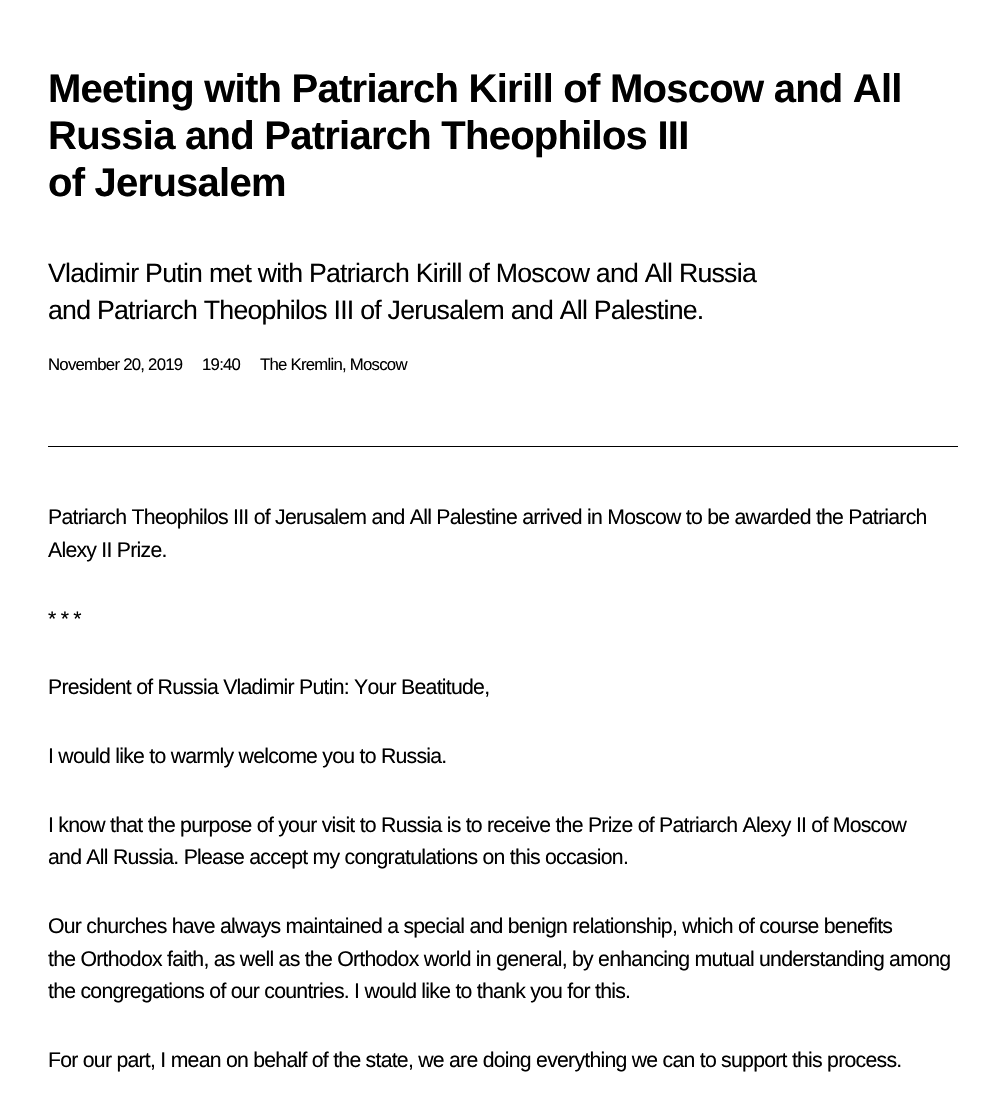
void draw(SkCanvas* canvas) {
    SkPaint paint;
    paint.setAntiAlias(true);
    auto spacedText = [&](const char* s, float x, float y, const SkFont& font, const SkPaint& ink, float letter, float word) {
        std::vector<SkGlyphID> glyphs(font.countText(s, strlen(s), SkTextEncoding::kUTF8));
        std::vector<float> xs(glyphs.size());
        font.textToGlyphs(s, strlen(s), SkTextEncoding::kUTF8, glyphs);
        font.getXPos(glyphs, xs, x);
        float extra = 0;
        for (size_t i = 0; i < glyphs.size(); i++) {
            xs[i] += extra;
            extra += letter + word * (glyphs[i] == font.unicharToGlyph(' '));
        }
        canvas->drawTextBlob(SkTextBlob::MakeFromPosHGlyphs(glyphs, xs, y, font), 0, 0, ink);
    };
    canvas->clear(0xFFFFFFFF);
    paint.setColor(0xFF000000);
    canvas->drawRect(SkRect::MakeXYWH(48, 446, 910, 1), paint);
    SkFont font1(fontMgr->matchFamilyStyle("Liberation Sans", SkFontStyle::Bold()), 40);
    font1.setSubpixel(true);
    spacedText("Meeting with Patriarch Kirill of Moscow and All", 48, 102, font1, paint, -0.75f, 0);
    spacedText("Russia and Patriarch Theophilos III", 48, 149, font1, paint, -0.75f, 0);
    spacedText("of Jerusalem", 48, 196, font1, paint, -0.75f, 0);
    SkFont font2(fontMgr->matchFamilyStyle("Liberation Sans", SkFontStyle::Normal()), 26.7f);
    font2.setSubpixel(true);
    spacedText("Vladimir Putin met with Patriarch Kirill of Moscow and All Russia", 48, 282, font2, paint, -0.75f, 0);
    spacedText("and Patriarch Theophilos III of Jerusalem and All Palestine.", 48, 319, font2, paint, -0.75f, 0);
    SkFont font3(fontMgr->matchFamilyStyle("Liberation Sans", SkFontStyle::Normal()), 16.75f);
    font3.setSubpixel(true);
    spacedText("November 20, 2019", 48, 370, font3, paint, -0.75f, 0);
    spacedText("19:40", 202, 370, font3, paint, -0.75f, 0);
    spacedText("The Kremlin, Moscow", 260, 370, font3, paint, -0.75f, 0);
    SkFont font4(fontMgr->matchFamilyStyle("Liberation Sans", SkFontStyle::Normal()), 21.25f);
    font4.setSubpixel(true);
    spacedText("Patriarch Theophilos III of Jerusalem and All Palestine arrived in Moscow to be awarded the Patriarch", 48, 524, font4, paint, -0.75f, 0);
    spacedText("Alexy II Prize.", 48, 557, font4, paint, -0.75f, 0);
    spacedText("* * *", 48, 626, font4, paint, -0.75f, 0);
    spacedText("President of Russia Vladimir Putin: Your Beatitude,", 48, 694, font4, paint, -0.75f, 0);
    spacedText("I would like to warmly welcome you to Russia.", 48, 763, font4, paint, -0.75f, 0);
    spacedText("I know that the purpose of your visit to Russia is to receive the Prize of Patriarch Alexy II of Moscow", 48, 832, font4, paint, -0.75f, 0);
    spacedText("and All Russia. Please accept my congratulations on this occasion.", 48, 864, font4, paint, -0.75f, 0);
    spacedText("Our churches have always maintained a special and benign relationship, which of course benefits", 48, 933, font4, paint, -0.75f, 0);
    spacedText("the Orthodox faith, as well as the Orthodox world in general, by enhancing mutual understanding among", 48, 966, font4, paint, -0.75f, 0);
    spacedText("the congregations of our countries. I would like to thank you for this.", 48, 998, font4, paint, -0.75f, 0);
    spacedText("For our part, I mean on behalf of the state, we are doing everything we can to support this process.", 48, 1067, font4, paint, -0.75f, 0);
}
